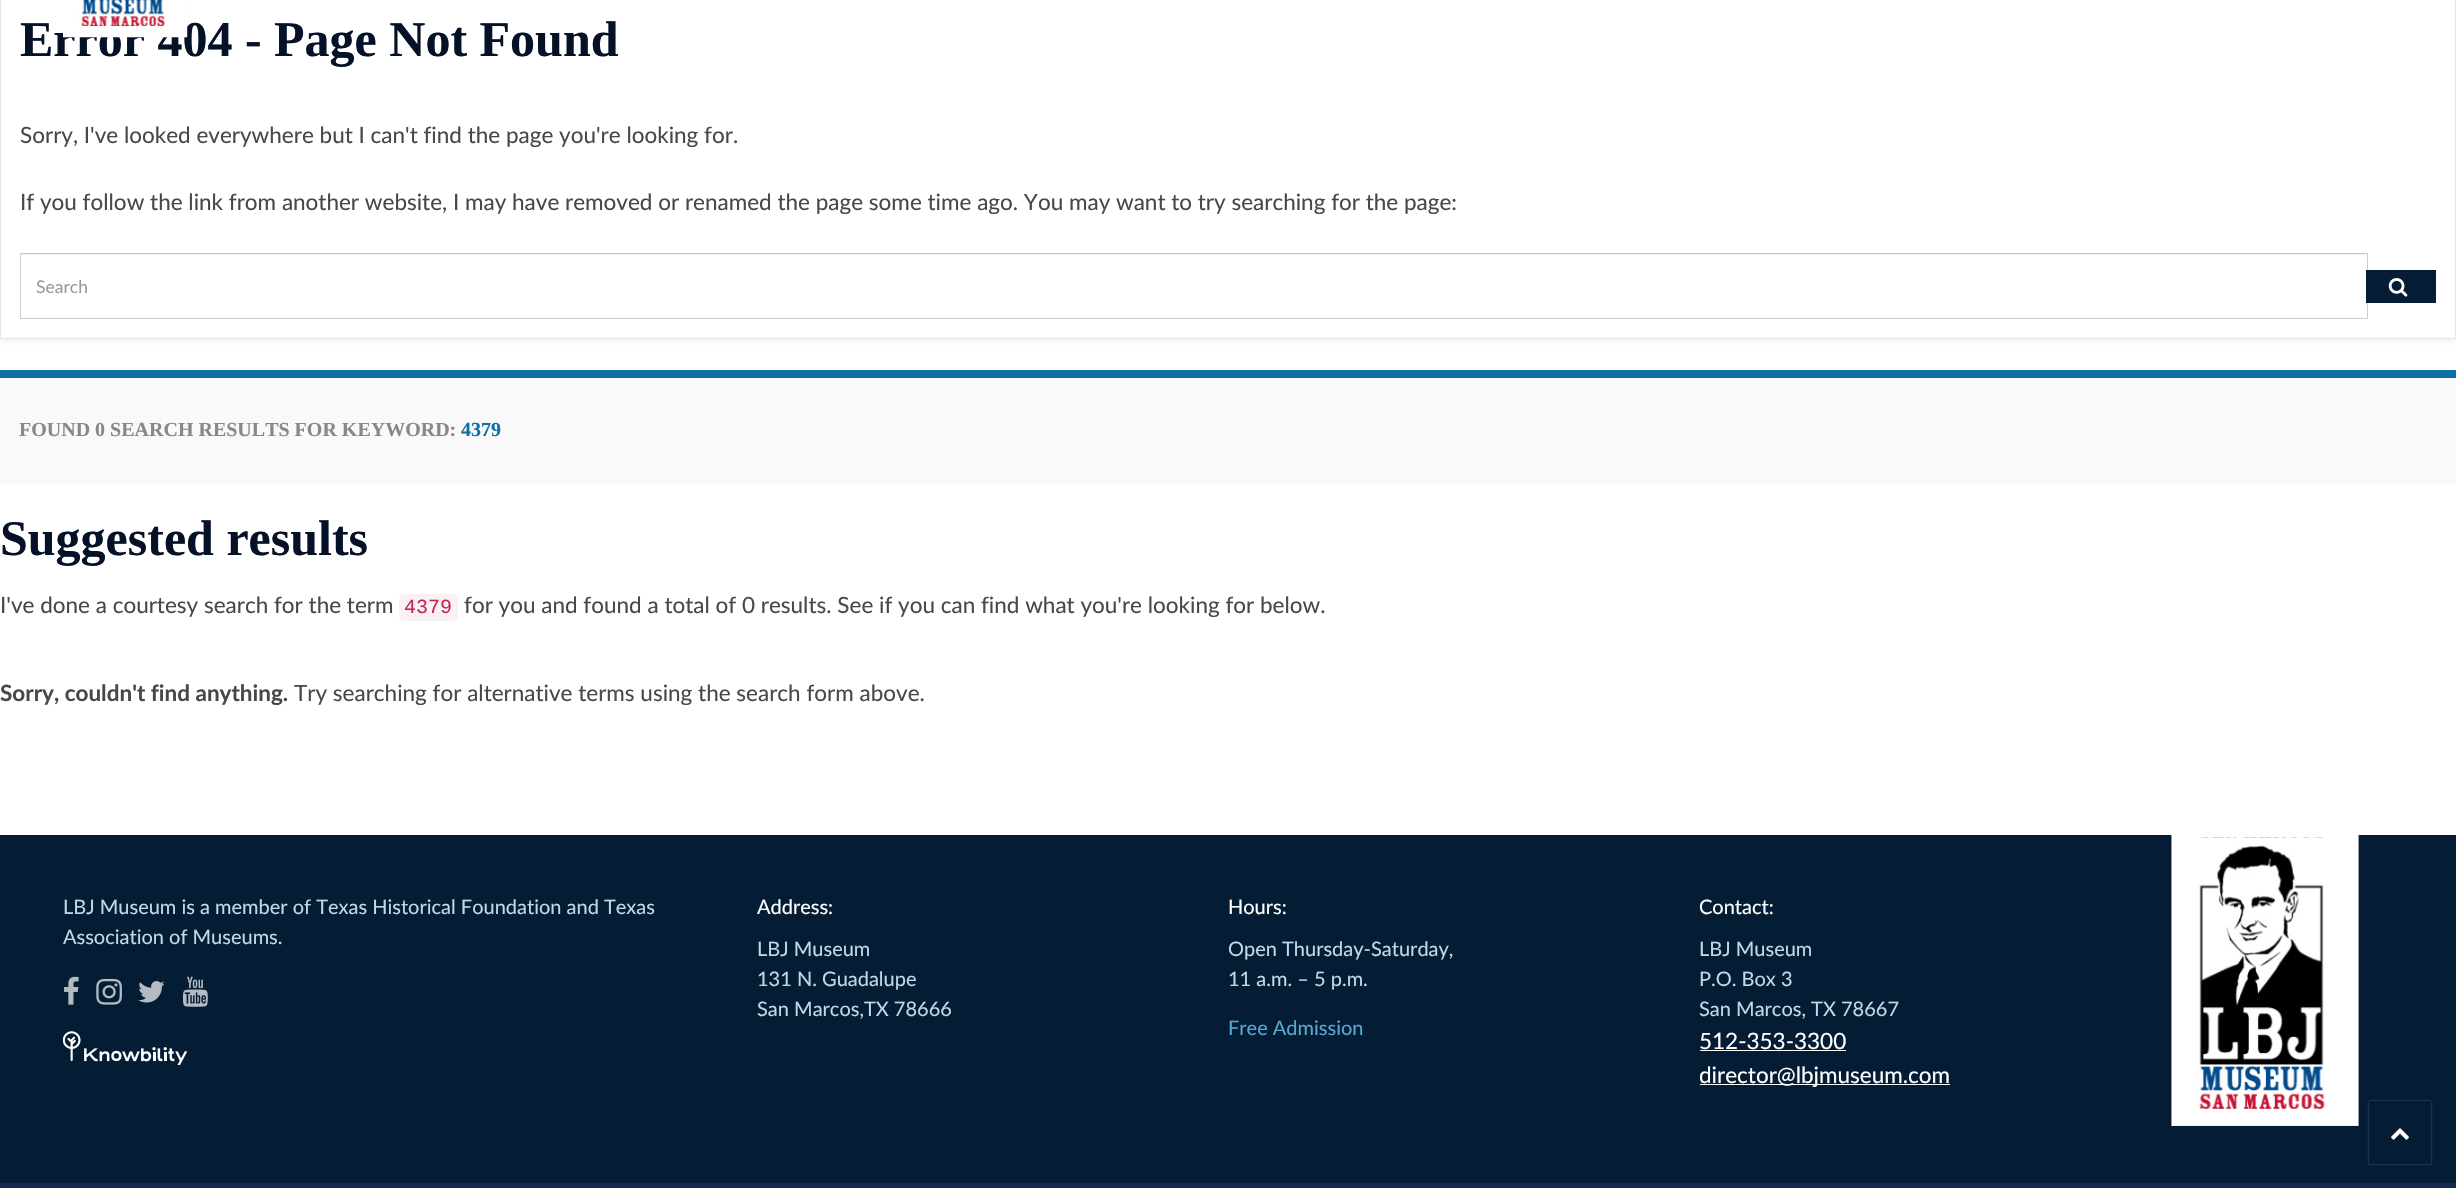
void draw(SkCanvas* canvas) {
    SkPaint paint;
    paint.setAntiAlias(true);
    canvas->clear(0xFFFFFFFF);
    paint.setColor(0x1A000000);
    paint.setMaskFilter(SkMaskFilter::MakeBlur(kNormal_SkBlurStyle, 3));
    canvas->drawRect(SkRect::MakeXYWH(0, -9, 2456, 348), paint);
    paint.setMaskFilter(nullptr);
    paint.setColor(0xFFFFFFFF);
    canvas->drawRect(SkRect::MakeXYWH(0.5f, -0.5f, 2455, 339), paint);
    paint.setStyle(SkPaint::kStroke_Style);
    paint.setStrokeWidth(1);
    paint.setColor(0xFFE9E8E3);
    canvas->drawRect(SkRect::MakeXYWH(0.5f, -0.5f, 2455, 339), paint);
    SkFont font1(fontMgr->matchFamilyStyle("Liberation Serif", SkFontStyle::Bold()), 50);
    font1.setSubpixel(true);
    paint.setStyle(SkPaint::kFill_Style);
    paint.setColor(0xFF051127);
    canvas->drawString("Error 404 - Page Not Found", 20, 56, font1, paint);
    canvas->drawImageRect(SkImages::DeferredFromEncodedData(SkData::MakeFromFileName("img1.png")), SkRect::MakeXYWH(63, 0, 125, 38), SkSamplingOptions());
    SkFont font2(fontMgr->matchFamilyStyle("Lato", SkFontStyle::Normal()), 22.5f);
    font2.setSubpixel(true);
    paint.setColor(0xFF4A474B);
    canvas->drawString("Sorry, I've looked everywhere but I can't find the page you're looking for.", 20, 143, font2, paint);
    canvas->drawString("If you follow the link from another website, I may have removed or renamed the page some time ago. You may want to try searching for the page:", 20, 210, font2, paint);
    paint.setColor(0xFFECECEC);
    canvas->drawRect(SkRect::MakeXYWH(21, 254, 2345, 1), paint);
    paint.setStyle(SkPaint::kStroke_Style);
    paint.setColor(0xFFCCCCCC);
    canvas->drawRect(SkRect::MakeXYWH(20.5f, 253.5f, 2347, 65), paint);
    SkFont font3(fontMgr->matchFamilyStyle("Lato", SkFontStyle::Normal()), 17.5f);
    font3.setSubpixel(true);
    paint.setStyle(SkPaint::kFill_Style);
    paint.setColor(0xFF999999);
    canvas->drawString("Search", 36, 293, font3, paint);
    paint.setColor(0xFF041C34);
    canvas->drawRect(SkRect::MakeXYWH(2366, 270, 70, 33), paint);
    canvas->drawImageRect(SkImages::DeferredFromEncodedData(SkData::MakeFromFileName("img2.png")), SkRect::MakeXYWH(2388, 278, 20, 19), SkSamplingOptions());
    paint.setColor(0xFFF9F9F9);
    canvas->drawRect(SkRect::MakeXYWH(0, 378, 2456, 107), paint);
    paint.setColor(0xFF0D6FA5);
    canvas->drawRect(SkRect::MakeXYWH(0, 370, 2456, 8), paint);
    SkFont font4(fontMgr->matchFamilyStyle("Liberation Serif", SkFontStyle::Bold()), 20);
    font4.setSubpixel(true);
    paint.setColor(0xFF888888);
    canvas->drawString("FOUND 0 SEARCH RESULTS FOR KEYWORD:", 19, 436, font4, paint);
    paint.setColor(0xFF0D6FA5);
    canvas->drawString("4379", 461, 436, font4, paint);
    paint.setColor(0xFF051127);
    canvas->drawString("Suggested results", 0, 555, font1, paint);
    paint.setColor(0xFF4A474B);
    canvas->drawString("I've done a courtesy search for the term", 0, 613, font2, paint);
    paint.setColor(0xFFF9F2F4);
    canvas->drawRoundRect(SkRect::MakeXYWH(399, 594, 59, 27), 5, 5, paint);
    SkFont font5(fontMgr->matchFamilyStyle("Liberation Mono", SkFontStyle::Normal()), 20);
    font5.setSubpixel(true);
    paint.setColor(0xFFC7254E);
    canvas->drawString("4379", 404, 613, font5, paint);
    paint.setColor(0xFF4A474B);
    canvas->drawString("for you and found a total of 0 results. See if you can find what you're looking for below.", 464, 613, font2, paint);
    SkFont font6(fontMgr->matchFamilyStyle("Lato", SkFontStyle::Bold()), 22.5f);
    font6.setSubpixel(true);
    canvas->drawString("Sorry, couldn't find anything.", 0, 701, font6, paint);
    canvas->drawString("Try searching for alternative terms using the search form above.", 294, 701, font2, paint);
    paint.setColor(0xFF041C34);
    canvas->drawRect(SkRect::MakeXYWH(0, 835, 2456, 348), paint);
    SkFont font7(fontMgr->matchFamilyStyle("Lato", SkFontStyle::Normal()), 20);
    font7.setSubpixel(true);
    paint.setColor(0xFFC3D8E5);
    canvas->drawString("LBJ Museum is a member of Texas Historical Foundation and Texas", 63, 914, font7, paint);
    canvas->drawString("Association of Museums.", 63, 944, font7, paint);
    canvas->drawImageRect(SkImages::DeferredFromEncodedData(SkData::MakeFromFileName("img3.png")), SkRect::MakeXYWH(64, 976, 15, 29), SkSamplingOptions());
    canvas->drawImageRect(SkImages::DeferredFromEncodedData(SkData::MakeFromFileName("img4.png")), SkRect::MakeXYWH(96, 978, 26, 27), SkSamplingOptions());
    canvas->drawImageRect(SkImages::DeferredFromEncodedData(SkData::MakeFromFileName("img5.png")), SkRect::MakeXYWH(138, 981, 27, 22), SkSamplingOptions());
    canvas->drawImageRect(SkImages::DeferredFromEncodedData(SkData::MakeFromFileName("img6.png")), SkRect::MakeXYWH(182, 976, 26, 31), SkSamplingOptions());
    canvas->drawImageRect(SkImages::DeferredFromEncodedData(SkData::MakeFromFileName("img7.png")), SkRect::MakeXYWH(63, 1031, 125, 34), SkSamplingOptions());
    paint.setColor(0xFFFFFFFF);
    canvas->drawString("Address:", 757, 914, font7, paint);
    paint.setColor(0xFFC3D8E5);
    canvas->drawString("LBJ Museum", 757, 956, font7, paint);
    canvas->drawString("131 N. Guadalupe", 757, 986, font7, paint);
    canvas->drawString("San Marcos,TX 78666", 757, 1016, font7, paint);
    paint.setColor(0xFFFFFFFF);
    canvas->drawString("Hours:", 1228, 914, font7, paint);
    paint.setColor(0xFFC3D8E5);
    canvas->drawString("Open Thursday-Saturday,", 1228, 956, font7, paint);
    canvas->drawString("11 a.m. – 5 p.m.", 1228, 986, font7, paint);
    paint.setColor(0xFF57A8D3);
    canvas->drawString("Free Admission", 1228, 1035, font7, paint);
    paint.setColor(0xFFFFFFFF);
    canvas->drawString("Contact:", 1699, 914, font7, paint);
    paint.setColor(0xFFC3D8E5);
    canvas->drawString("LBJ Museum", 1699, 956, font7, paint);
    canvas->drawString("P.O. Box 3", 1699, 986, font7, paint);
    canvas->drawString("San Marcos, TX 78667", 1699, 1016, font7, paint);
    paint.setColor(0xFFFFFFFF);
    canvas->drawString("512-353-3300", 1699, 1049, font2, paint);
    canvas->drawRect(SkRect::MakeXYWH(1700, 1050, 146, 1), paint);
    canvas->drawRect(SkRect::MakeXYWH(1700, 1084, 250, 1), paint);
    canvas->drawString("director@lbjmuseum.com", 1699, 1083, font2, paint);
    canvas->drawImageRect(SkImages::DeferredFromEncodedData(SkData::MakeFromFileName("img8.png")), SkRect::MakeXYWH(2171, 835, 188, 291), SkSamplingOptions());
    paint.setColor(0xFF162B50);
    canvas->drawRect(SkRect::MakeXYWH(0, 1183, 2456, 5), paint);
    paint.setColor(0x4DFFFFFF);
    paint.setMaskFilter(SkMaskFilter::MakeBlur(kNormal_SkBlurStyle, 1));
    canvas->drawRect(SkRect::MakeXYWH(2369, 1101, 62, 63), paint);
    paint.setMaskFilter(nullptr);
    paint.setColor(0xFF041C34);
    canvas->drawRect(SkRect::MakeXYWH(2369, 1101, 62, 63), paint);
    canvas->drawImageRect(SkImages::DeferredFromEncodedData(SkData::MakeFromFileName("img9.png")), SkRect::MakeXYWH(2391, 1128, 18, 12), SkSamplingOptions());
}
